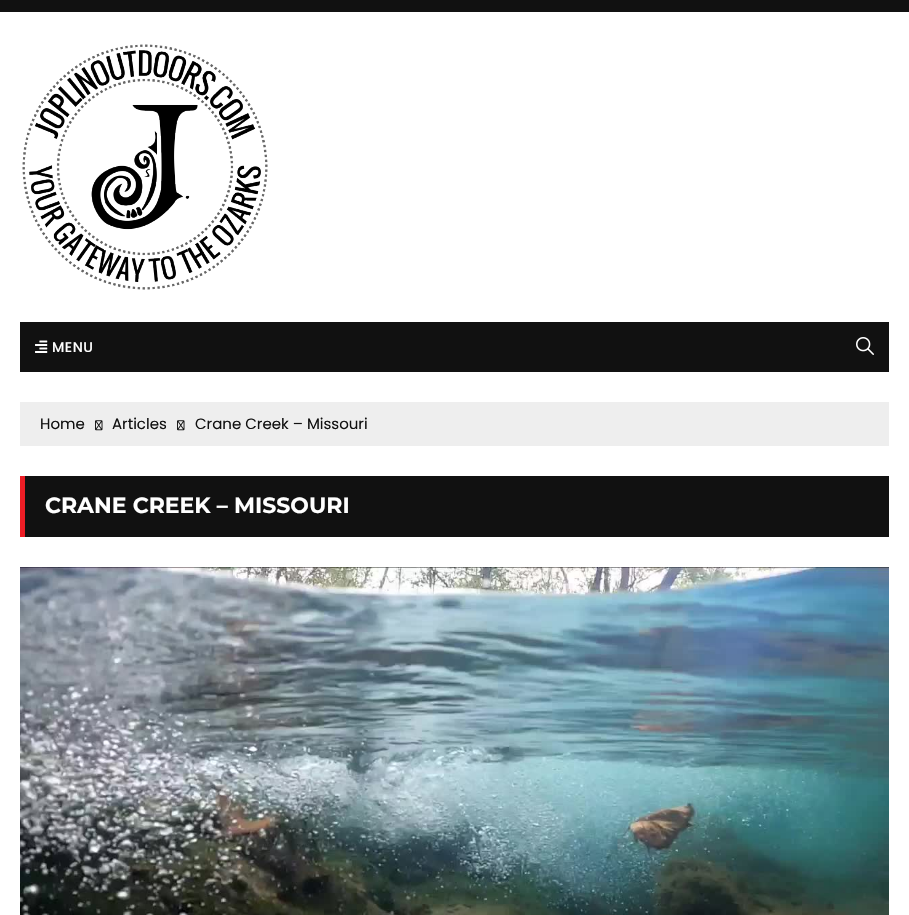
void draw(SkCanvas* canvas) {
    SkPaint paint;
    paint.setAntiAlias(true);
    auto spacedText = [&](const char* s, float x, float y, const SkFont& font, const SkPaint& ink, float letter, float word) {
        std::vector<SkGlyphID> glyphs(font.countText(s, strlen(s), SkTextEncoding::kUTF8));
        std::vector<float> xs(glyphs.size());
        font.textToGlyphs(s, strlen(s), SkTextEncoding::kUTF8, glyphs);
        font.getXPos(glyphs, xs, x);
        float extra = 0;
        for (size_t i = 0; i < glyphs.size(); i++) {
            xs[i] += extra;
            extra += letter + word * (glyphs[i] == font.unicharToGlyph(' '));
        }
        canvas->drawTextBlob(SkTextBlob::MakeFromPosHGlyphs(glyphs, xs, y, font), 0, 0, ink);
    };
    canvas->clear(0xFFFFFFFF);
    paint.setColor(0xFF111111);
    canvas->drawRect(SkRect::MakeXYWH(0, 0, 909, 12), paint);
    canvas->drawImageRect(SkImages::DeferredFromEncodedData(SkData::MakeFromFileName("img1.png")), SkRect::MakeXYWH(22, 44, 246, 246), SkSamplingOptions());
    canvas->drawRect(SkRect::MakeXYWH(20, 322, 869, 50), paint);
    canvas->drawImageRect(SkImages::DeferredFromEncodedData(SkData::MakeFromFileName("img2.png")), SkRect::MakeXYWH(35, 340, 13, 13), SkSamplingOptions());
    SkFont font1(fontMgr->matchFamilyStyle("Poppins", SkFontStyle(500, SkFontStyle::kNormal_Width, SkFontStyle::kUpright_Slant)), 14);
    font1.setSubpixel(true);
    paint.setColor(0xFFFFFFFF);
    spacedText("MENU", 52, 352, font1, paint, 0.5f, 0);
    canvas->drawImageRect(SkImages::DeferredFromEncodedData(SkData::MakeFromFileName("img3.png")), SkRect::MakeXYWH(856, 337, 18, 18), SkSamplingOptions());
    paint.setColor(0xFFEEEEEE);
    canvas->drawRect(SkRect::MakeXYWH(20, 402, 869, 44), paint);
    SkFont font2(fontMgr->matchFamilyStyle("Poppins", SkFontStyle::Normal()), 15);
    font2.setSubpixel(true);
    paint.setColor(0xFF111111);
    canvas->drawString("Home", 40, 429, font2, paint);
    canvas->drawImageRect(SkImages::DeferredFromEncodedData(SkData::MakeFromFileName("img4.png")), SkRect::MakeXYWH(95, 420, 8, 11), SkSamplingOptions());
    canvas->drawString("Articles", 112, 429, font2, paint);
    canvas->drawImageRect(SkImages::DeferredFromEncodedData(SkData::MakeFromFileName("img4.png")), SkRect::MakeXYWH(177, 420, 8, 11), SkSamplingOptions());
    canvas->drawString("Crane Creek – Missouri", 195, 429, font2, paint);
    canvas->drawRect(SkRect::MakeXYWH(25, 476, 864, 61), paint);
    paint.setColor(0xFFED1D25);
    canvas->drawRect(SkRect::MakeXYWH(20, 476, 5, 61), paint);
    SkFont font3(fontMgr->matchFamilyStyle("Montserrat", SkFontStyle::Bold()), 22);
    font3.setSubpixel(true);
    paint.setColor(0xFFFFFFFF);
    canvas->drawString("CRANE CREEK – MISSOURI", 45, 513, font3, paint);
    canvas->drawImageRect(SkImages::DeferredFromEncodedData(SkData::MakeFromFileName("img5.png")), SkRect::MakeXYWH(20, 567, 869, 348), SkSamplingOptions());
}
